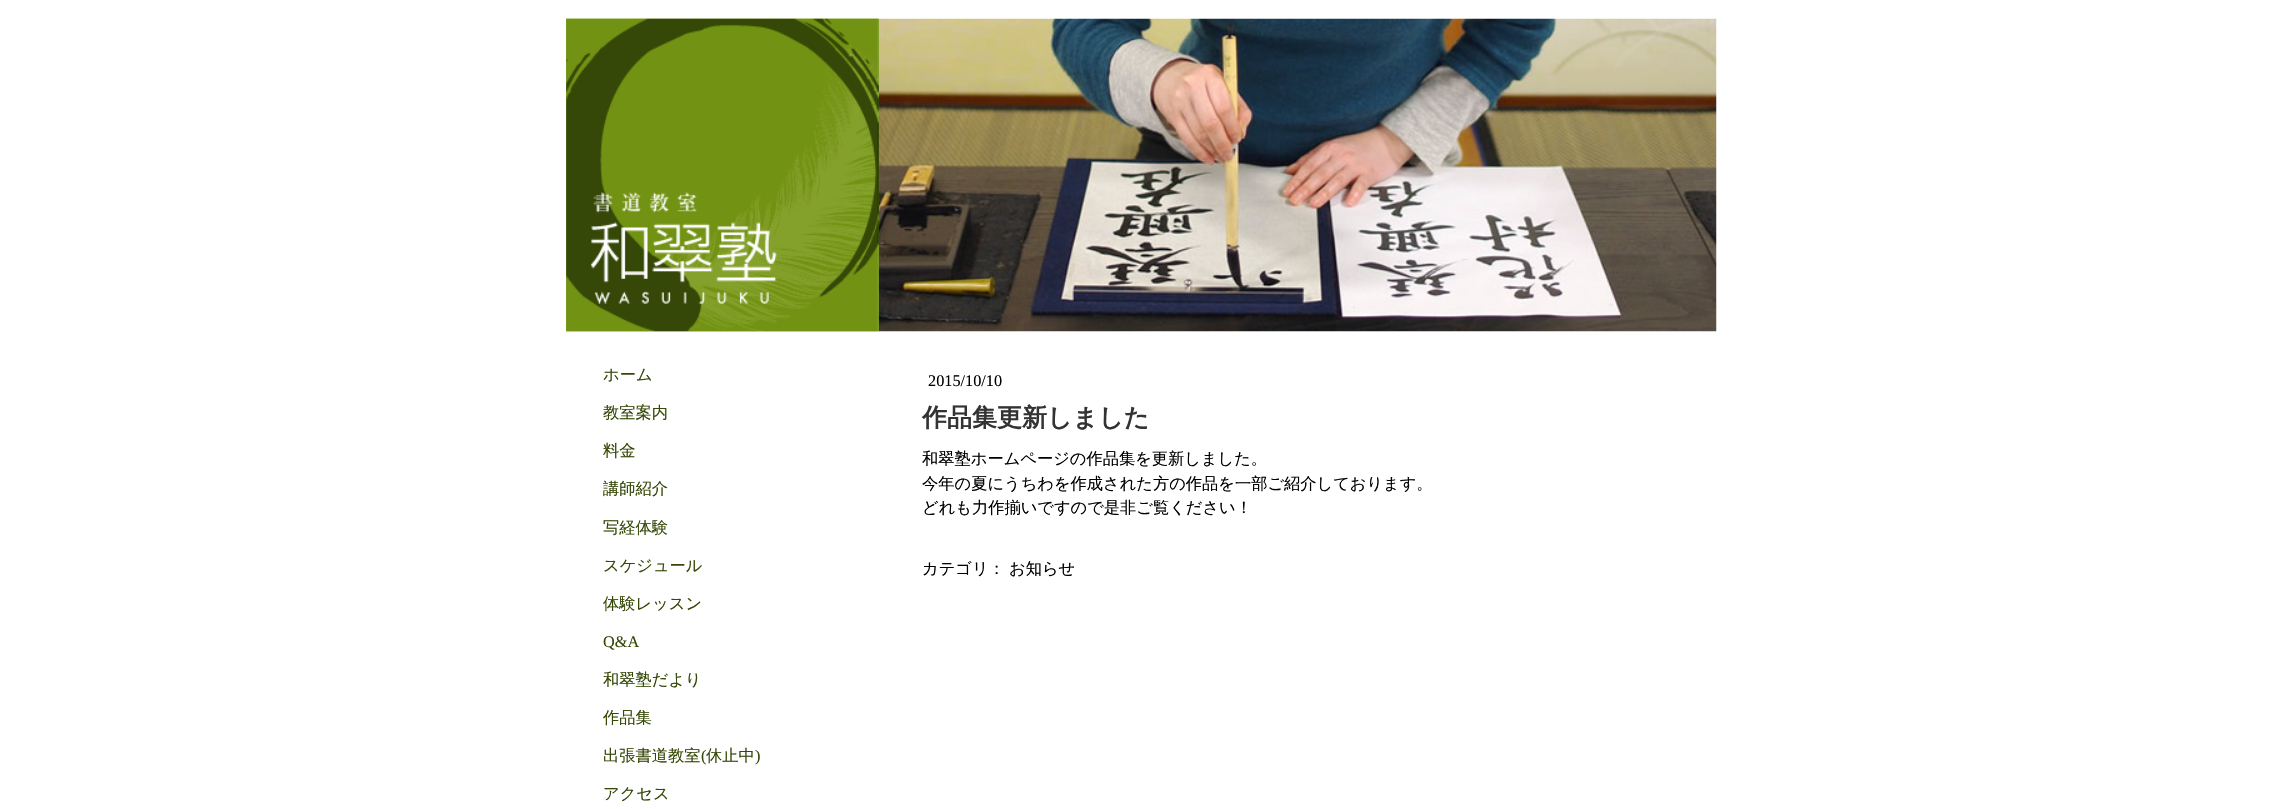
void draw(SkCanvas* canvas) {
    SkPaint paint;
    paint.setAntiAlias(true);
    canvas->clear(0xFFFFFFFF);
    canvas->drawImageRect(SkImages::DeferredFromEncodedData(SkData::MakeFromFileName("img1.png")), SkRect::MakeXYWH(566, 18, 1151, 314), SkSamplingOptions());
    canvas->drawImageRect(SkImages::DeferredFromEncodedData(SkData::MakeFromFileName("img2.png")), SkRect::MakeXYWH(566, 18, 313, 314), SkSamplingOptions());
    SkFont font1(fontMgr->matchFamilyStyle("WenQuanYi Zen Hei", SkFontStyle(500, SkFontStyle::kNormal_Width, SkFontStyle::kUpright_Slant)), 16.25f);
    font1.setSubpixel(true);
    paint.setColor(0xFF354807);
    canvas->drawString("ホーム", 603, 380, font1, paint);
    canvas->drawString("教室案内", 603, 418, font1, paint);
    canvas->drawString("料金", 603, 456, font1, paint);
    canvas->drawString("講師紹介", 603, 494, font1, paint);
    canvas->drawString("写経体験", 603, 533, font1, paint);
    canvas->drawString("スケジュール", 603, 571, font1, paint);
    canvas->drawString("体験レッスン", 603, 609, font1, paint);
    SkFont font2(fontMgr->matchFamilyStyle("Liberation Serif", SkFontStyle::Normal()), 16.25f);
    font2.setSubpixel(true);
    canvas->drawString("Q&A", 603, 647, font2, paint);
    canvas->drawString("和翠塾だより", 603, 685, font1, paint);
    canvas->drawString("作品集", 603, 723, font1, paint);
    canvas->drawString("出張書道教室", 603, 761, font1, paint);
    canvas->drawString("(", 701, 761, font2, paint);
    canvas->drawString("休止中", 706, 761, font1, paint);
    canvas->drawString(")", 755, 761, font2, paint);
    canvas->drawString("アクセス", 603, 799, font1, paint);
    paint.setColor(0xFF000000);
    canvas->drawString("2015/10/10", 928, 386, font2, paint);
    SkFont font3(fontMgr->matchFamilyStyle("WenQuanYi Zen Hei", SkFontStyle::Bold()), 25);
    font3.setSubpixel(true);
    paint.setColor(0xFF333333);
    canvas->drawString("作品集更新しました", 922, 426, font3, paint);
    paint.setColor(0xFF000000);
    canvas->drawString("和翠塾ホームページの作品集を更新しました。", 922, 464, font1, paint);
    canvas->drawString("今年の夏にうちわを作成された方の作品を一部ご紹介しております。", 922, 489, font1, paint);
    canvas->drawString("どれも力作揃いですので是非ご覧ください！", 922, 513, font1, paint);
    canvas->drawString("カテゴリ：", 922, 574, font1, paint);
    canvas->drawString("お知らせ", 1009, 574, font1, paint);
}
